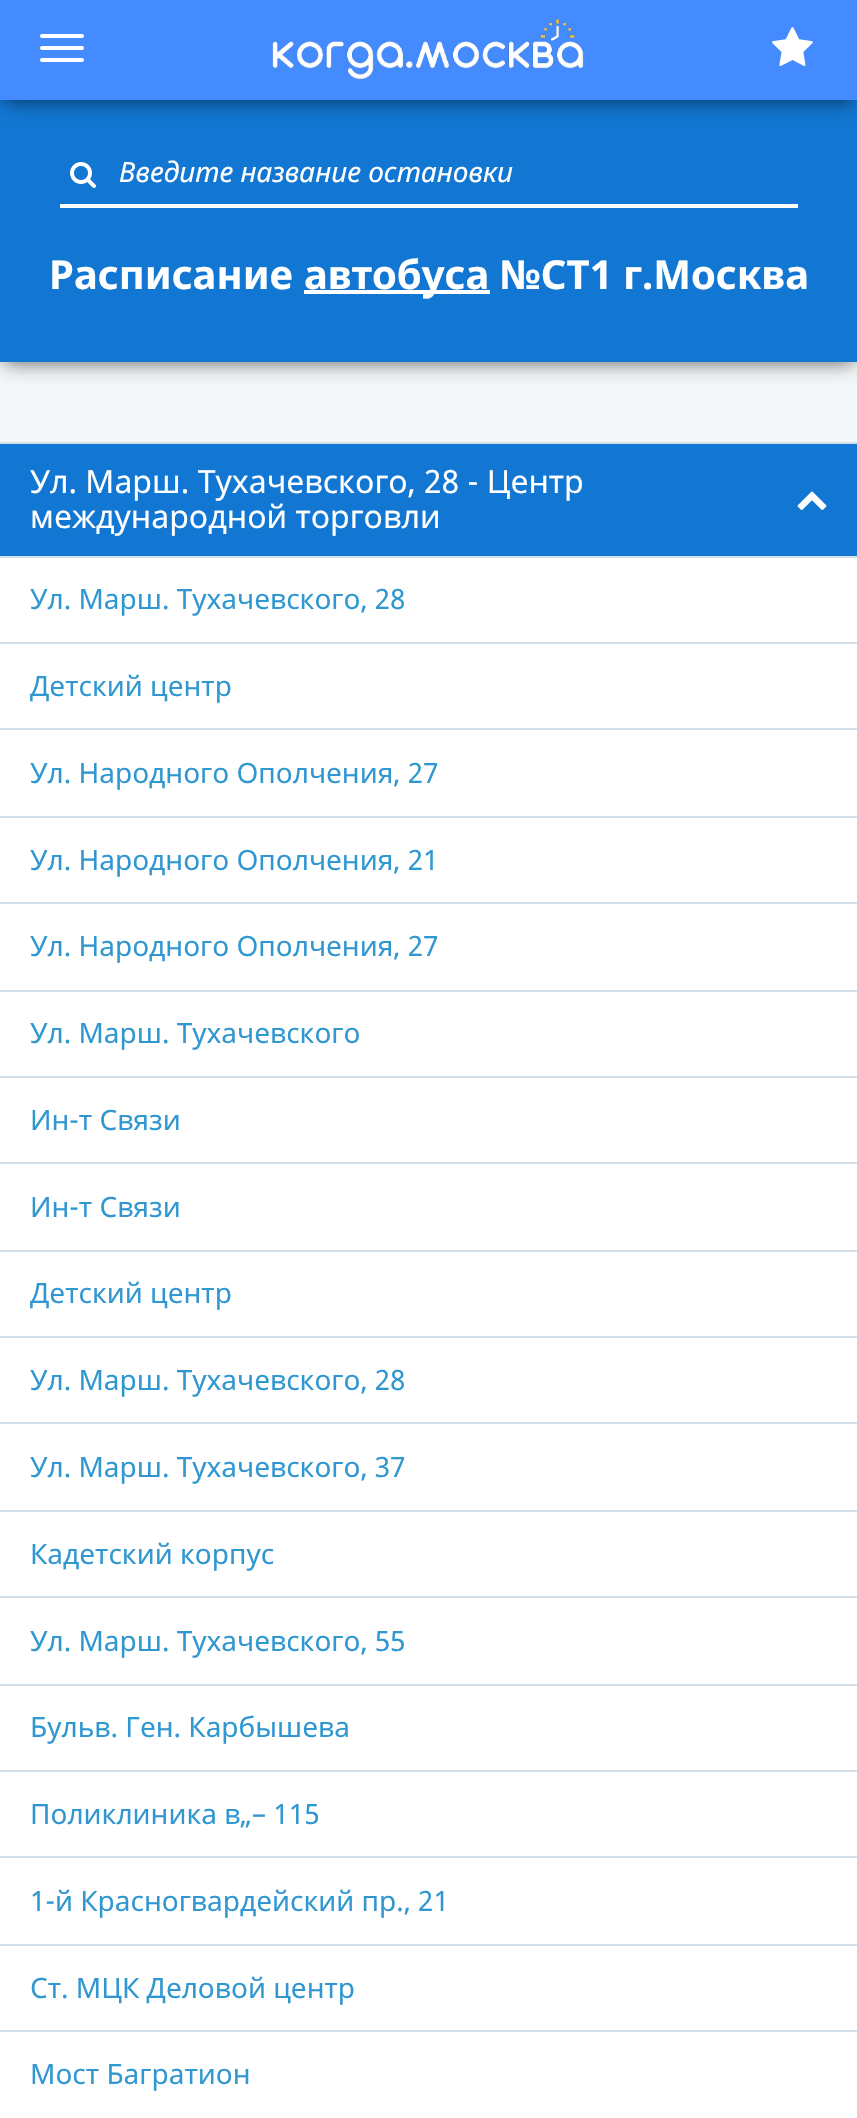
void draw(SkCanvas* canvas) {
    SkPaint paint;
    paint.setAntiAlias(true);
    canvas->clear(0xFFF5F8FA);
    paint.setColor(0xA6000000);
    paint.setMaskFilter(SkMaskFilter::MakeBlur(kNormal_SkBlurStyle, 10));
    canvas->drawRect(SkRect::MakeXYWH(4, 256, 850, 106), paint);
    paint.setMaskFilter(nullptr);
    paint.setColor(0xFF1277D3);
    canvas->drawRect(SkRect::MakeXYWH(0, 100, 857, 262), paint);
    paint.setColor(0xA6000000);
    paint.setMaskFilter(SkMaskFilter::MakeBlur(kNormal_SkBlurStyle, 10));
    canvas->drawRect(SkRect::MakeXYWH(4, 8, 850, 92), paint);
    paint.setMaskFilter(nullptr);
    paint.setColor(0xFF438BFF);
    canvas->drawRect(SkRect::MakeXYWH(0, 0, 857, 100), paint);
    paint.setColor(0xFFFFFFFF);
    canvas->drawRoundRect(SkRect::MakeXYWH(40, 34, 44, 4), 2, 2, paint);
    canvas->drawRoundRect(SkRect::MakeXYWH(40, 46, 44, 4), 2, 2, paint);
    canvas->drawRoundRect(SkRect::MakeXYWH(40, 58, 44, 4), 2, 2, paint);
    canvas->drawImageRect(SkImages::DeferredFromEncodedData(SkData::MakeFromFileName("img1.png")), SkRect::MakeXYWH(272, 18, 312, 62), SkSamplingOptions());
    canvas->drawImageRect(SkImages::DeferredFromEncodedData(SkData::MakeFromFileName("img2.png")), SkRect::MakeXYWH(772, 27, 41, 39), SkSamplingOptions());
    canvas->drawImageRect(SkImages::DeferredFromEncodedData(SkData::MakeFromFileName("img3.png")), SkRect::MakeXYWH(70, 162, 26, 26), SkSamplingOptions());
    canvas->drawRect(SkRect::MakeXYWH(60, 204, 738, 4), paint);
    SkFont font1(fontMgr->matchFamilyStyle("Noto Sans", SkFontStyle::Italic()), 28);
    font1.setSubpixel(true);
    canvas->drawString("Введите название остановки", 119, 182, font1, paint);
    SkFont font2(fontMgr->matchFamilyStyle("Noto Sans", SkFontStyle::Bold()), 40);
    font2.setSubpixel(true);
    canvas->drawString("Расписание", 49, 289, font2, paint);
    canvas->drawRect(SkRect::MakeXYWH(304, 290, 186, 4), paint);
    canvas->drawString("автобуса №СТ1 г.Москва", 304, 289, font2, paint);
    canvas->drawRect(SkRect::MakeXYWH(0, 558, 857, 1560), paint);
    paint.setColor(0xFFD3E0E9);
    canvas->drawRect(SkRect::MakeXYWH(0, 442, 857, 2), paint);
    paint.setColor(0xFF1277D3);
    canvas->drawRect(SkRect::MakeXYWH(0, 444, 857, 112), paint);
    SkFont font3(fontMgr->matchFamilyStyle("Noto Sans", SkFontStyle::Normal()), 32);
    font3.setSubpixel(true);
    paint.setColor(0xFFFFFFFF);
    canvas->drawString("Ул. Марш. Тухачевского, 28 - Центр", 30, 493, font3, paint);
    canvas->drawImageRect(SkImages::DeferredFromEncodedData(SkData::MakeFromFileName("img4.png")), SkRect::MakeXYWH(797, 491, 30, 19), SkSamplingOptions());
    canvas->drawString("международной торговли", 30, 528, font3, paint);
    paint.setColor(0xFFD3E0E9);
    canvas->drawRect(SkRect::MakeXYWH(0, 556, 857, 2), paint);
    canvas->drawRect(SkRect::MakeXYWH(0, 642, 857, 2), paint);
    SkFont font4(fontMgr->matchFamilyStyle("Noto Sans", SkFontStyle::Normal()), 28);
    font4.setSubpixel(true);
    paint.setColor(0xFF3097D1);
    canvas->drawString("Ул. Марш. Тухачевского, 28", 30, 609, font4, paint);
    paint.setColor(0xFFD3E0E9);
    canvas->drawRect(SkRect::MakeXYWH(0, 728, 857, 2), paint);
    paint.setColor(0xFF3097D1);
    canvas->drawString("Детский центр", 30, 696, font4, paint);
    paint.setColor(0xFFD3E0E9);
    canvas->drawRect(SkRect::MakeXYWH(0, 816, 857, 2), paint);
    paint.setColor(0xFF3097D1);
    canvas->drawString("Ул. Народного Ополчения, 27", 30, 783, font4, paint);
    paint.setColor(0xFFD3E0E9);
    canvas->drawRect(SkRect::MakeXYWH(0, 902, 857, 2), paint);
    paint.setColor(0xFF3097D1);
    canvas->drawString("Ул. Народного Ополчения, 21", 30, 870, font4, paint);
    paint.setColor(0xFFD3E0E9);
    canvas->drawRect(SkRect::MakeXYWH(0, 990, 857, 2), paint);
    paint.setColor(0xFF3097D1);
    canvas->drawString("Ул. Народного Ополчения, 27", 30, 956, font4, paint);
    paint.setColor(0xFFD3E0E9);
    canvas->drawRect(SkRect::MakeXYWH(0, 1076, 857, 2), paint);
    paint.setColor(0xFF3097D1);
    canvas->drawString("Ул. Марш. Тухачевского", 30, 1043, font4, paint);
    paint.setColor(0xFFD3E0E9);
    canvas->drawRect(SkRect::MakeXYWH(0, 1162, 857, 2), paint);
    paint.setColor(0xFF3097D1);
    canvas->drawString("Ин-т Связи", 30, 1130, font4, paint);
    paint.setColor(0xFFD3E0E9);
    canvas->drawRect(SkRect::MakeXYWH(0, 1250, 857, 2), paint);
    paint.setColor(0xFF3097D1);
    canvas->drawString("Ин-т Связи", 30, 1217, font4, paint);
    paint.setColor(0xFFD3E0E9);
    canvas->drawRect(SkRect::MakeXYWH(0, 1336, 857, 2), paint);
    paint.setColor(0xFF3097D1);
    canvas->drawString("Детский центр", 30, 1303, font4, paint);
    paint.setColor(0xFFD3E0E9);
    canvas->drawRect(SkRect::MakeXYWH(0, 1422, 857, 2), paint);
    paint.setColor(0xFF3097D1);
    canvas->drawString("Ул. Марш. Тухачевского, 28", 30, 1390, font4, paint);
    paint.setColor(0xFFD3E0E9);
    canvas->drawRect(SkRect::MakeXYWH(0, 1510, 857, 2), paint);
    paint.setColor(0xFF3097D1);
    canvas->drawString("Ул. Марш. Тухачевского, 37", 30, 1477, font4, paint);
    paint.setColor(0xFFD3E0E9);
    canvas->drawRect(SkRect::MakeXYWH(0, 1596, 857, 2), paint);
    paint.setColor(0xFF3097D1);
    canvas->drawString("Кадетский корпус", 30, 1564, font4, paint);
    paint.setColor(0xFFD3E0E9);
    canvas->drawRect(SkRect::MakeXYWH(0, 1684, 857, 2), paint);
    paint.setColor(0xFF3097D1);
    canvas->drawString("Ул. Марш. Тухачевского, 55", 30, 1651, font4, paint);
    paint.setColor(0xFFD3E0E9);
    canvas->drawRect(SkRect::MakeXYWH(0, 1770, 857, 2), paint);
    paint.setColor(0xFF3097D1);
    canvas->drawString("Бульв. Ген. Карбышева", 30, 1737, font4, paint);
    paint.setColor(0xFFD3E0E9);
    canvas->drawRect(SkRect::MakeXYWH(0, 1856, 857, 2), paint);
    paint.setColor(0xFF3097D1);
    canvas->drawString("Поликлиника в„– 115", 30, 1824, font4, paint);
    paint.setColor(0xFFD3E0E9);
    canvas->drawRect(SkRect::MakeXYWH(0, 1944, 857, 2), paint);
    paint.setColor(0xFF3097D1);
    canvas->drawString("1-й Красногвардейский пр., 21", 30, 1911, font4, paint);
    paint.setColor(0xFFD3E0E9);
    canvas->drawRect(SkRect::MakeXYWH(0, 2030, 857, 2), paint);
    paint.setColor(0xFF3097D1);
    canvas->drawString("Ст. МЦК Деловой центр", 30, 1998, font4, paint);
    canvas->drawString("Мост Багратион", 30, 2084, font4, paint);
}
